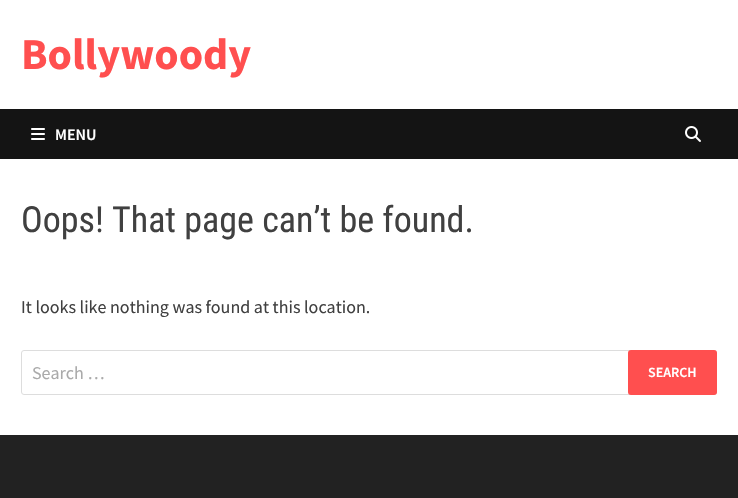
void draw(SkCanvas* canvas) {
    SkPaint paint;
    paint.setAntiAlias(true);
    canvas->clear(0xFFFFFFFF);
    SkFont font1(fontMgr->matchFamilyStyle("Source Sans Pro", SkFontStyle::Bold()), 44);
    font1.setSubpixel(true);
    paint.setColor(0xFFFF4F4F);
    canvas->drawString("Bollywoody", 21, 69, font1, paint);
    paint.setColor(0xFF141414);
    canvas->drawRect(SkRect::MakeXYWH(0, 109, 738, 50), paint);
    canvas->drawImageRect(SkImages::DeferredFromEncodedData(SkData::MakeFromFileName("img1.png")), SkRect::MakeXYWH(31, 128, 14, 12), SkSamplingOptions());
    SkFont font2(fontMgr->matchFamilyStyle("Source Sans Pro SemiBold", SkFontStyle(600, SkFontStyle::kNormal_Width, SkFontStyle::kUpright_Slant)), 16);
    font2.setSubpixel(true);
    paint.setColor(0xFFFFFFFF);
    canvas->drawString("MENU", 55, 140, font2, paint);
    canvas->drawImageRect(SkImages::DeferredFromEncodedData(SkData::MakeFromFileName("img2.png")), SkRect::MakeXYWH(685, 126, 16, 16), SkSamplingOptions());
    SkFont font3(fontMgr->matchFamilyStyle("Roboto Condensed", SkFontStyle::Normal()), 36);
    font3.setSubpixel(true);
    paint.setColor(0xFF404040);
    canvas->drawString("Oops! That page can’t be found.", 21, 232, font3, paint);
    SkFont font4(fontMgr->matchFamilyStyle("Source Sans Pro", SkFontStyle::Normal()), 18);
    font4.setSubpixel(true);
    canvas->drawString("It looks like nothing was found at this location.", 21, 313, font4, paint);
    paint.setStyle(SkPaint::kStroke_Style);
    paint.setStrokeWidth(1);
    paint.setColor(0xFFDDDDDD);
    canvas->drawRoundRect(SkRect::MakeXYWH(21.5f, 350.5f, 695, 44), 2.5f, 2.5f, paint);
    paint.setStyle(SkPaint::kFill_Style);
    paint.setColor(0xFFAAAAAA);
    canvas->drawString("Search …", 32, 379, font4, paint);
    paint.setColor(0xFFFF4F4F);
    canvas->drawRoundRect(SkRect::MakeXYWH(628, 350, 89, 45), 3, 3, paint);
    SkFont font5(fontMgr->matchFamilyStyle("Source Sans Pro SemiBold", SkFontStyle(600, SkFontStyle::kNormal_Width, SkFontStyle::kUpright_Slant)), 14);
    font5.setSubpixel(true);
    paint.setColor(0xFFFFFFFF);
    canvas->drawString("SEARCH", 648, 377, font5, paint);
    paint.setColor(0xFF222222);
    canvas->drawRect(SkRect::MakeXYWH(0, 435, 738, 63), paint);
}
